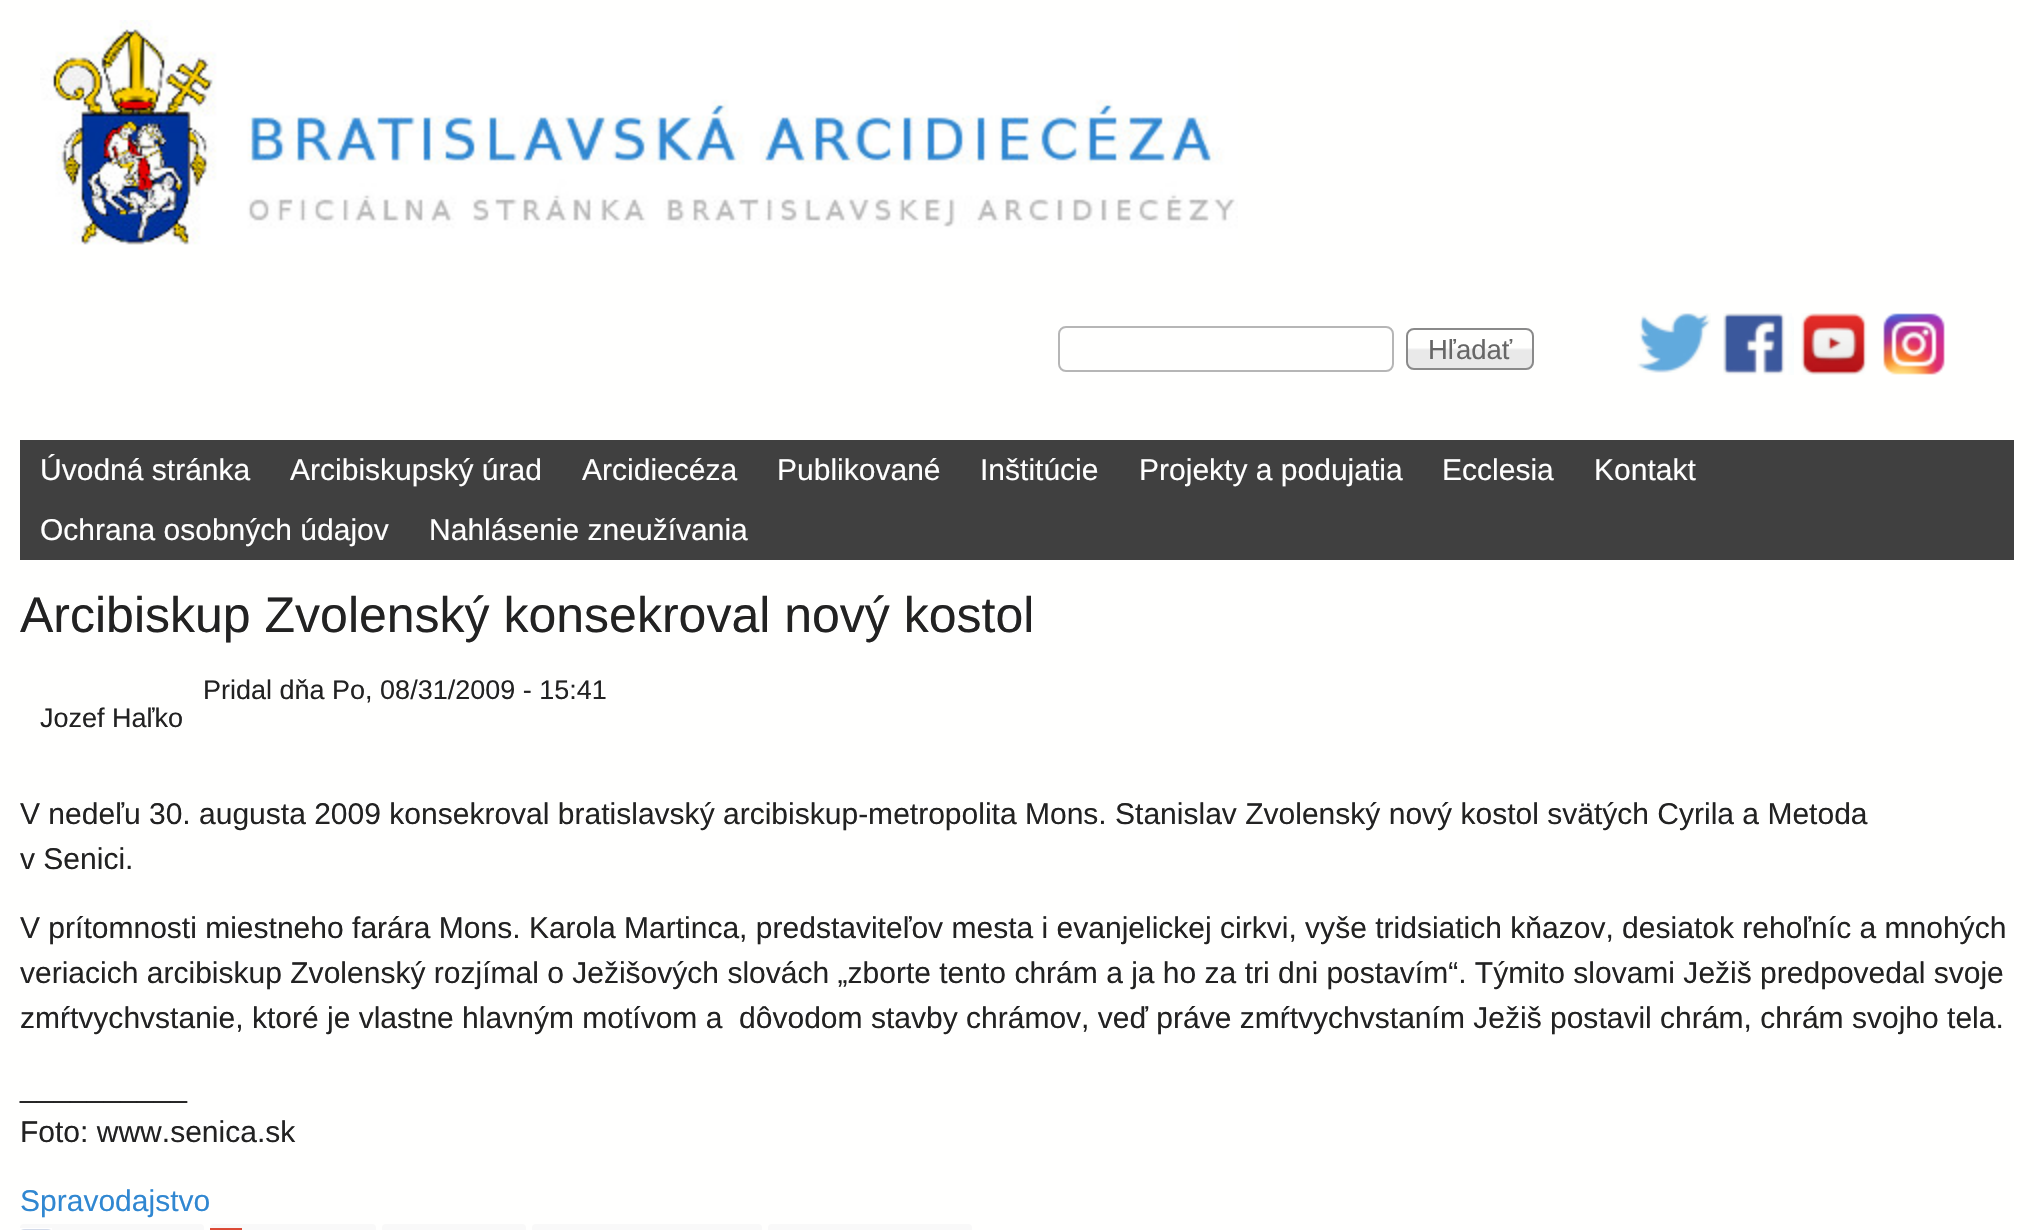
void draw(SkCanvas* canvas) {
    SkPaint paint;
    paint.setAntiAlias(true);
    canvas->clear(0xFFFFFFFE);
    canvas->drawImageRect(SkImages::DeferredFromEncodedData(SkData::MakeFromFileName("img1.png")), SkRect::MakeXYWH(40, 20, 1198, 225), SkSamplingOptions());
    paint.setStyle(SkPaint::kStroke_Style);
    paint.setStrokeWidth(2);
    paint.setColor(0xFFB6B6B6);
    canvas->drawRoundRect(SkRect::MakeXYWH(1059, 327, 334, 44), 7, 7, paint);
    canvas->drawImageRect(SkImages::DeferredFromEncodedData(SkData::MakeFromFileName("img2.png")), SkRect::MakeXYWH(1406, 348, 128, 22), SkSamplingOptions());
    paint.setColor(0xFF8A8A8A);
    canvas->drawRoundRect(SkRect::MakeXYWH(1407, 329, 126, 40), 7, 7, paint);
    SkFont font1(fontMgr->matchFamilyStyle("Liberation Sans", SkFontStyle::Normal()), 27.5f);
    font1.setSubpixel(true);
    paint.setStyle(SkPaint::kFill_Style);
    paint.setColor(0xFF666666);
    canvas->drawString("Hľadať", 1428, 359, font1, paint);
    canvas->drawImageRect(SkImages::DeferredFromEncodedData(SkData::MakeFromFileName("img3.png")), SkRect::MakeXYWH(1637, 313, 74, 60), SkSamplingOptions());
    canvas->drawImageRect(SkImages::DeferredFromEncodedData(SkData::MakeFromFileName("img4.png")), SkRect::MakeXYWH(1723, 313, 71, 62), SkSamplingOptions());
    canvas->drawImageRect(SkImages::DeferredFromEncodedData(SkData::MakeFromFileName("img5.png")), SkRect::MakeXYWH(1801, 313, 66, 62), SkSamplingOptions());
    canvas->drawImageRect(SkImages::DeferredFromEncodedData(SkData::MakeFromFileName("img6.png")), SkRect::MakeXYWH(1883, 313, 62, 62), SkSamplingOptions());
    paint.setColor(0xFF404040);
    canvas->drawRect(SkRect::MakeXYWH(20, 440, 1994, 120), paint);
    SkFont font2(fontMgr->matchFamilyStyle("Liberation Sans", SkFontStyle::Normal()), 30.02f);
    font2.setSubpixel(true);
    paint.setColor(0xFFFFFFFF);
    canvas->drawString("Úvodná stránka", 40, 480, font2, paint);
    canvas->drawString("Arcibiskupský úrad", 290, 480, font2, paint);
    canvas->drawString("Arcidiecéza", 582, 480, font2, paint);
    canvas->drawString("Publikované", 777, 480, font2, paint);
    canvas->drawString("Inštitúcie", 980, 480, font2, paint);
    canvas->drawString("Projekty a podujatia", 1139, 480, font2, paint);
    canvas->drawString("Ecclesia", 1442, 480, font2, paint);
    canvas->drawString("Kontakt", 1594, 480, font2, paint);
    canvas->drawString("Ochrana osobných údajov", 40, 540, font2, paint);
    canvas->drawString("Nahlásenie zneužívania", 429, 540, font2, paint);
    SkFont font3(fontMgr->matchFamilyStyle("Liberation Sans", SkFontStyle::Normal()), 50);
    font3.setSubpixel(true);
    paint.setColor(0xFF222222);
    canvas->drawString("Arcibiskup Zvolenský konsekroval nový kostol", 20, 632, font3, paint);
    SkFont font4(fontMgr->matchFamilyStyle("Liberation Sans", SkFontStyle::Normal()), 27);
    font4.setSubpixel(true);
    canvas->drawString("Pridal dňa Po, 08/31/2009 - 15:41", 203, 699, font4, paint);
    canvas->drawString("Jozef Haľko", 40, 727, font4, paint);
    canvas->drawString("V nedeľu 30. augusta 2009 konsekroval bratislavský arcibiskup-metropolita Mons. Stanislav Zvolenský nový kostol svätých Cyrila a Metoda", 20, 824, font2, paint);
    canvas->drawString("v Senici.", 20, 869, font2, paint);
    canvas->drawString("V prítomnosti miestneho farára Mons. Karola Martinca, predstaviteľov mesta i evanjelickej cirkvi, vyše tridsiatich kňazov, desiatok rehoľníc a mnohých", 20, 938, font2, paint);
    canvas->drawString("veriacich arcibiskup Zvolenský rozjímal o Ježišových slovách „zborte tento chrám a ja ho za tri dni postavím“. Týmito slovami Ježiš predpovedal svoje", 20, 983, font2, paint);
    canvas->drawString("zmŕtvychvstanie, ktoré je vlastne hlavným motívom a  dôvodom stavby chrámov, veď práve zmŕtvychvstaním Ježiš postavil chrám, chrám svojho tela.", 20, 1028, font2, paint);
    canvas->drawString("__________", 20, 1097, font2, paint);
    canvas->drawString("Foto: www.senica.sk", 20, 1142, font2, paint);
    paint.setColor(0xFF3087D1);
    canvas->drawString("Spravodajstvo", 20, 1211, font2, paint);
    paint.setColor(0xFFF9F9F9);
    canvas->drawRoundRect(SkRect::MakeXYWH(20, 1224, 184, 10), 4, 4, paint);
    canvas->drawImageRect(SkImages::DeferredFromEncodedData(SkData::MakeFromFileName("img7.png")), SkRect::MakeXYWH(20, 1228, 32, 2), SkSamplingOptions());
    canvas->drawRoundRect(SkRect::MakeXYWH(210, 1224, 166, 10), 4, 4, paint);
    canvas->drawImageRect(SkImages::DeferredFromEncodedData(SkData::MakeFromFileName("img8.png")), SkRect::MakeXYWH(210, 1228, 32, 2), SkSamplingOptions());
    canvas->drawRoundRect(SkRect::MakeXYWH(382, 1224, 144, 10), 4, 4, paint);
    canvas->drawRoundRect(SkRect::MakeXYWH(532, 1224, 230, 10), 4, 4, paint);
    canvas->drawRoundRect(SkRect::MakeXYWH(768, 1224, 204, 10), 4, 4, paint);
}
